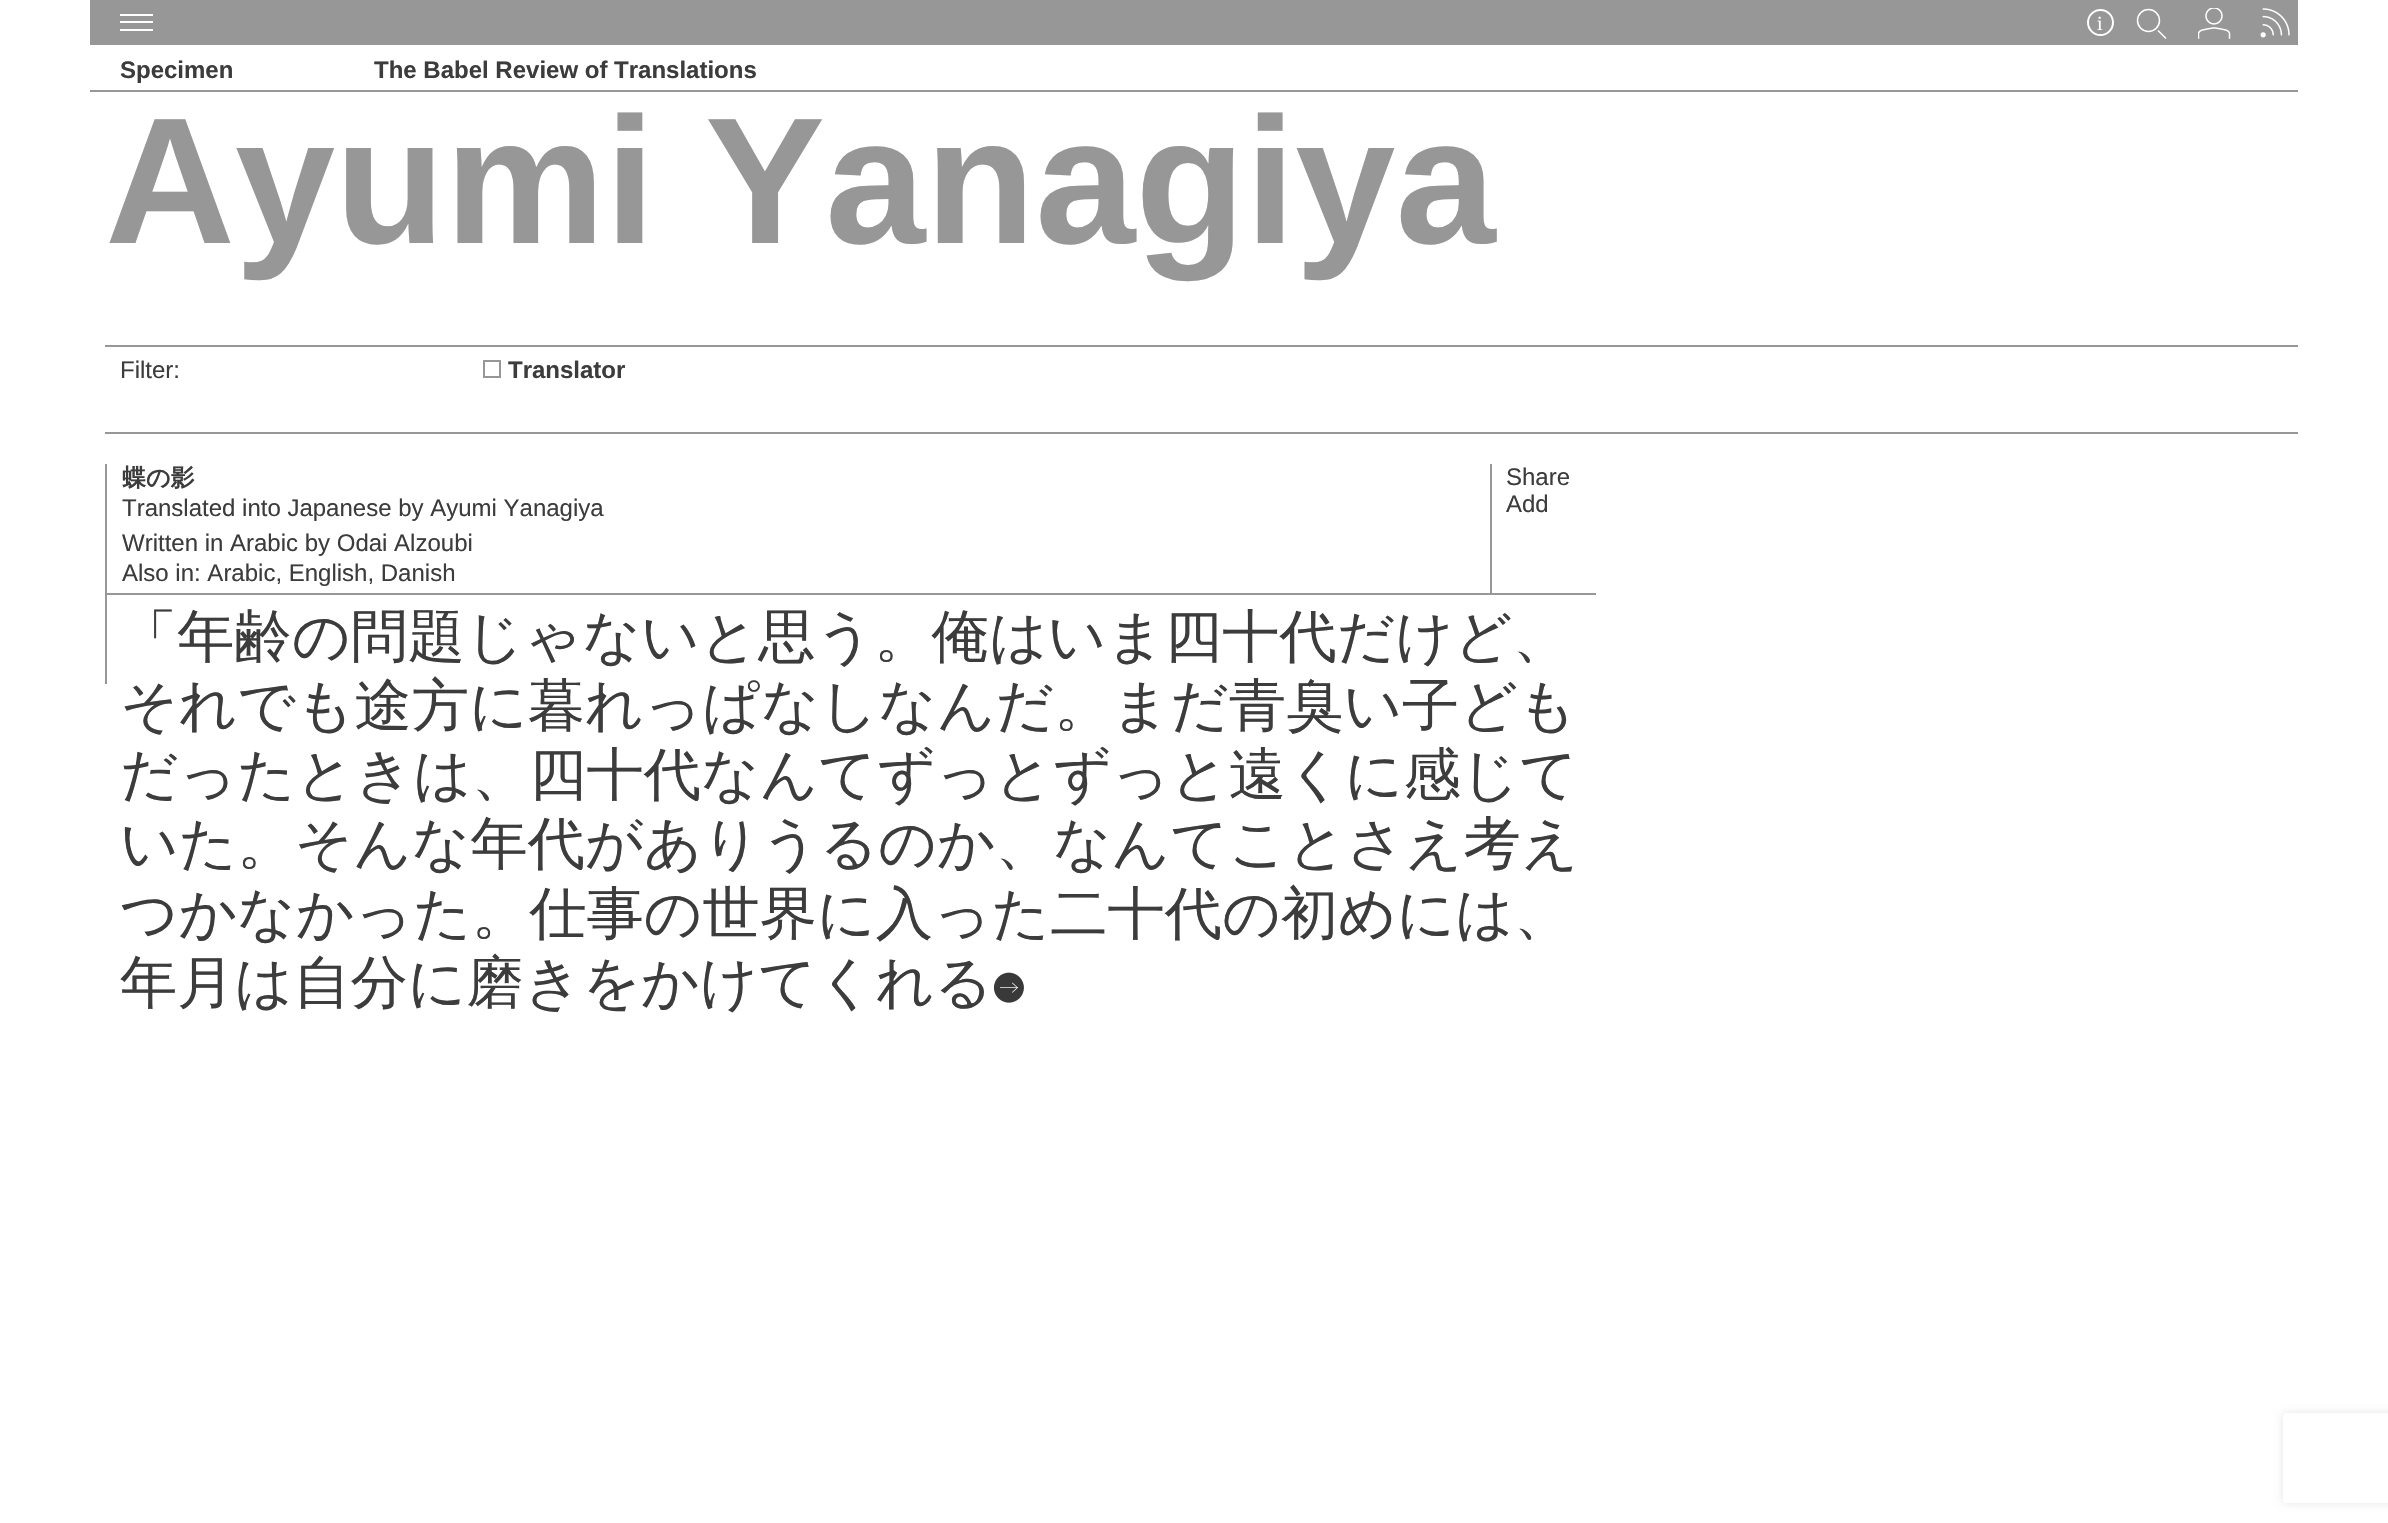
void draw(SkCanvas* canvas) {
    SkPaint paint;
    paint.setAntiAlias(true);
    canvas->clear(0xFFFFFFFF);
    paint.setColor(0xFF979798);
    canvas->drawRect(SkRect::MakeXYWH(90, 0, 2208, 45), paint);
    paint.setColor(0xFFFFFFFF);
    canvas->drawRect(SkRect::MakeXYWH(120, 14, 33, 2), paint);
    canvas->drawRect(SkRect::MakeXYWH(120, 21, 33, 2), paint);
    canvas->drawRect(SkRect::MakeXYWH(120, 29, 33, 2), paint);
    paint.setStyle(SkPaint::kStroke_Style);
    paint.setStrokeWidth(2);
    canvas->drawCircle(2100.5f, 22.5f, 12.5f, paint);
    SkFont font1(fontMgr->matchFamilyStyle("Liberation Serif", SkFontStyle::Normal()), 20);
    font1.setSubpixel(true);
    paint.setStyle(SkPaint::kFill_Style);
    canvas->drawString("i", 2097, 30, font1, paint);
    paint.setStyle(SkPaint::kStroke_Style);
    paint.setStrokeWidth(1.5f);
    canvas->drawCircle(2148.5f, 20.5f, 11, paint);
    paint.setStrokeCap(SkPaint::kSquare_Cap);
    canvas->drawPath(SkPathBuilder().moveTo(2165.5f, 38).lineTo(2158.5f, 31).detach(), paint);
    canvas->drawImageRect(SkImages::DeferredFromEncodedData(SkData::MakeFromFileName("img1.png")), SkRect::MakeXYWH(2198, 8, 33, 31), SkSamplingOptions());
    canvas->drawImageRect(SkImages::DeferredFromEncodedData(SkData::MakeFromFileName("img2.png")), SkRect::MakeXYWH(2260, 8, 30, 30), SkSamplingOptions());
    paint.setStyle(SkPaint::kFill_Style);
    paint.setColor(0xFF979798);
    canvas->drawRect(SkRect::MakeXYWH(90, 90, 2208, 2), paint);
    SkFont font2(fontMgr->matchFamilyStyle("Liberation Sans", SkFontStyle::Bold()), 24);
    font2.setSubpixel(true);
    paint.setColor(0xFF3C3C3C);
    canvas->drawString("Specimen", 120, 78, font2, paint);
    canvas->drawString("The Babel Review of Translations", 374, 78, font2, paint);
    SkFont font3(fontMgr->matchFamilyStyle("Liberation Sans", SkFontStyle::Bold()), 180);
    font3.setSubpixel(true);
    paint.setColor(0xFF979798);
    canvas->drawString("Ayumi Yanagiya", 105, 243, font3, paint);
    canvas->drawRect(SkRect::MakeXYWH(105, 345, 2193, 2), paint);
    canvas->drawRect(SkRect::MakeXYWH(105, 432, 2193, 2), paint);
    SkFont font4(fontMgr->matchFamilyStyle("Liberation Sans", SkFontStyle::Normal()), 24);
    font4.setSubpixel(true);
    paint.setColor(0xFF3C3C3C);
    canvas->drawString("Filter:", 120, 378, font4, paint);
    paint.setStyle(SkPaint::kStroke_Style);
    paint.setStrokeWidth(2);
    paint.setStrokeCap(SkPaint::kButt_Cap);
    paint.setColor(0xFF979798);
    canvas->drawRect(SkRect::MakeXYWH(484, 361, 16, 16), paint);
    paint.setStyle(SkPaint::kFill_Style);
    paint.setColor(0xFF3C3C3C);
    canvas->drawString("Translator", 508, 378, font2, paint);
    paint.setColor(0xFF979798);
    canvas->drawRect(SkRect::MakeXYWH(105, 464, 2, 220), paint);
    canvas->drawRect(SkRect::MakeXYWH(107, 593, 1489, 2), paint);
    SkFont font5(fontMgr->matchFamilyStyle("WenQuanYi Zen Hei", SkFontStyle::Bold()), 24);
    font5.setSubpixel(true);
    paint.setColor(0xFF3C3C3C);
    canvas->drawString("蝶の影", 122, 486, font5, paint);
    canvas->drawString("Translated into Japanese by Ayumi Yanagiya", 122, 516, font4, paint);
    canvas->drawString("Written in Arabic by Odai Alzoubi", 122, 551, font4, paint);
    canvas->drawString("Also in: Arabic, English, Danish", 122, 581, font4, paint);
    paint.setColor(0xFF979798);
    canvas->drawRect(SkRect::MakeXYWH(1490, 464, 2, 130), paint);
    paint.setColor(0xFF3C3C3C);
    canvas->drawString("Share", 1506, 485, font4, paint);
    canvas->drawString("Add", 1506, 512, font4, paint);
    SkFont font6(fontMgr->matchFamilyStyle("WenQuanYi Zen Hei", SkFontStyle(500, SkFontStyle::kNormal_Width, SkFontStyle::kUpright_Slant)), 57.3f);
    font6.setSubpixel(true);
    canvas->drawString("「年齢の問題じゃないと思う。俺はいま四十代だけど、", 120, 656, font6, paint);
    canvas->drawString("それでも途方に暮れっぱなしなんだ。まだ青臭い子ども", 120, 725, font6, paint);
    canvas->drawString("だったときは、四十代なんてずっとずっと遠くに感じて", 120, 794, font6, paint);
    canvas->drawString("いた。そんな年代がありうるのか、なんてことさえ考え", 120, 863, font6, paint);
    canvas->drawString("つかなかった。仕事の世界に入った二十代の初めには、", 120, 933, font6, paint);
    canvas->drawString("年月は自分に磨きをかけてくれる", 120, 1002, font6, paint);
    canvas->drawImageRect(SkImages::DeferredFromEncodedData(SkData::MakeFromFileName("img3.png")), SkRect::MakeXYWH(993, 972, 31, 31), SkSamplingOptions());
    canvas->save();
    canvas->clipPath(SkPathBuilder(SkPathFillType::kEvenOdd).moveTo(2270, 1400).lineTo(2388, 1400).lineTo(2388, 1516).lineTo(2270, 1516).close().moveTo(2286, 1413).lineTo(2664, 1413).cubicTo(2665.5f, 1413, 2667, 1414.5f, 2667, 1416).lineTo(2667, 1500).cubicTo(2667, 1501.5f, 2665.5f, 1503, 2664, 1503).lineTo(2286, 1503).cubicTo(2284.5f, 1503, 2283, 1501.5f, 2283, 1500).lineTo(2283, 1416).cubicTo(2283, 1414.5f, 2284.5f, 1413, 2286, 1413).close().detach(), true);
    paint.setColor(0xFFE6E6E6);
    paint.setMaskFilter(SkMaskFilter::MakeBlur(kNormal_SkBlurStyle, 4));
    canvas->drawRoundRect(SkRect::MakeXYWH(2283, 1413, 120, 90), 3, 3, paint);
    paint.setMaskFilter(nullptr);
    canvas->restore();
}
